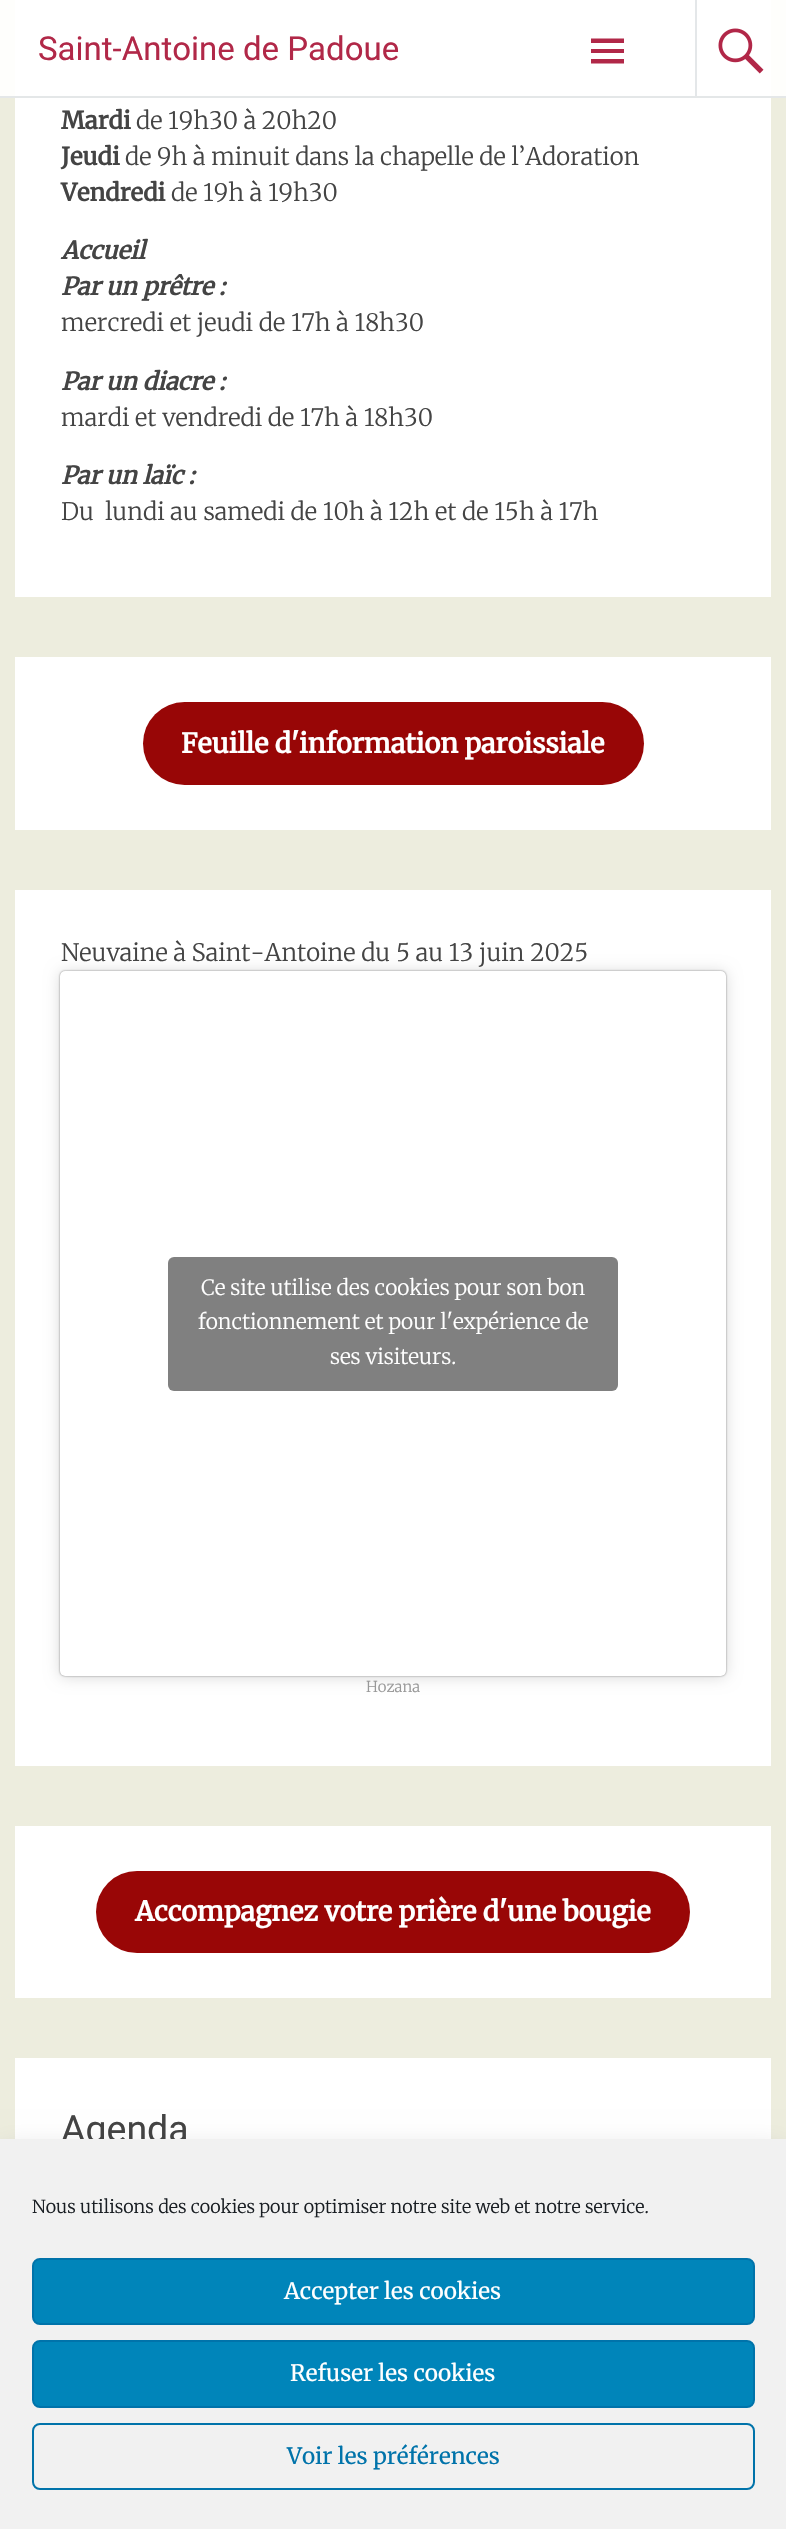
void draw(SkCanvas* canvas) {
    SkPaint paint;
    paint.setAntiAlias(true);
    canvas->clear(0xFFEDEDDE);
    paint.setColor(0xFFFFFFFF);
    canvas->drawRect(SkRect::MakeXYWH(15, 0, 756, 597), paint);
    paint.setColor(0xE6FFFFFF);
    canvas->drawRect(SkRect::MakeXYWH(0, 0, 786, 98), paint);
    paint.setColor(0xE6E1E4E6);
    canvas->drawRect(SkRect::MakeXYWH(0, 96, 786, 2), paint);
    SkFont font1(fontMgr->matchFamilyStyle("Roboto", SkFontStyle::Normal()), 33);
    font1.setSubpixel(true);
    paint.setColor(0xFFB12848);
    canvas->drawString("Saint-Antoine de Padoue", 38, 60, font1, paint);
    canvas->drawPath(SkPathBuilder().moveTo(591, 63.5f).lineTo(591, 59).lineTo(624, 59).lineTo(624, 63.5f).close().moveTo(591, 38.5f).lineTo(624, 38.5f).lineTo(624, 43).lineTo(591, 43).close().moveTo(591, 53).lineTo(591, 49).lineTo(624, 49).lineTo(624, 53).close().detach(), paint);
    paint.setColor(0xFFE4E7E9);
    canvas->drawRect(SkRect::MakeXYWH(695, 0, 2, 96), paint);
    canvas->drawImageRect(SkImages::DeferredFromEncodedData(SkData::MakeFromFileName("img1.png")), SkRect::MakeXYWH(718, 28, 46, 46), SkSamplingOptions());
    SkFont font2(fontMgr->matchFamilyStyle("Merriweather", SkFontStyle::Bold()), 24);
    font2.setSubpixel(true);
    paint.setColor(0xFF444444);
    canvas->drawString("Mardi", 61, 129, font2, paint);
    SkFont font3(fontMgr->matchFamilyStyle("Merriweather", SkFontStyle(300, SkFontStyle::kNormal_Width, SkFontStyle::kUpright_Slant)), 24);
    font3.setSubpixel(true);
    canvas->drawString("de 19h30 à 20h20", 136, 129, font3, paint);
    canvas->drawString("Jeudi", 61, 165, font2, paint);
    canvas->drawString("de 9h à minuit dans la chapelle de l’Adoration", 125, 165, font3, paint);
    canvas->drawString("Vendredi", 61, 201, font2, paint);
    canvas->drawString("de 19h à 19h30", 171, 201, font3, paint);
    SkFont font4(fontMgr->matchFamilyStyle("Merriweather", SkFontStyle::BoldItalic()), 24);
    font4.setSubpixel(true);
    canvas->drawString("Accueil", 61, 259, font4, paint);
    canvas->drawString("Par un prêtre :", 61, 295, font4, paint);
    canvas->drawString("mercredi et jeudi de 17h à 18h30", 61, 331, font3, paint);
    canvas->drawString("Par un diacre :", 61, 390, font4, paint);
    canvas->drawString("mardi et vendredi de 17h à 18h30", 61, 426, font3, paint);
    canvas->drawString("Par un laïc :", 61, 484, font4, paint);
    canvas->drawString("Du  lundi au samedi de 10h à 12h et de 15h à 17h", 61, 520, font3, paint);
    paint.setColor(0xFFFFFFFF);
    canvas->drawRect(SkRect::MakeXYWH(15, 657, 756, 173), paint);
    paint.setColor(0xFF980606);
    canvas->drawRoundRect(SkRect::MakeXYWH(143, 702, 501, 83), 41.5f, 41.5f, paint);
    SkFont font5(fontMgr->matchFamilyStyle("Merriweather", SkFontStyle::Bold()), 27);
    font5.setSubpixel(true);
    paint.setColor(0xFFFFFFFF);
    canvas->drawString("Feuille d'information paroissiale", 181, 753, font5, paint);
    canvas->drawRect(SkRect::MakeXYWH(15, 890, 756, 876), paint);
    paint.setColor(0xFF444444);
    canvas->drawString("Neuvaine à Saint-Antoine du 5 au 13 juin 2025", 61, 961, font3, paint);
    paint.setColor(0x26000000);
    paint.setMaskFilter(SkMaskFilter::MakeBlur(kNormal_SkBlurStyle, 7.5f));
    canvas->drawRoundRect(SkRect::MakeXYWH(60, 972, 666, 705), 5, 5, paint);
    paint.setMaskFilter(nullptr);
    paint.setColor(0x80000000);
    paint.setMaskFilter(SkMaskFilter::MakeBlur(kNormal_SkBlurStyle, 1));
    canvas->drawRoundRect(SkRect::MakeXYWH(60, 971, 666, 705), 5, 5, paint);
    paint.setMaskFilter(nullptr);
    paint.setColor(0xFFFFFFFF);
    canvas->drawRoundRect(SkRect::MakeXYWH(60, 971, 666, 705), 5, 5, paint);
    paint.setColor(0xFF808080);
    canvas->drawRoundRect(SkRect::MakeXYWH(168, 1257, 450, 134), 6, 6, paint);
    SkFont font6(fontMgr->matchFamilyStyle("Merriweather", SkFontStyle(300, SkFontStyle::kNormal_Width, SkFontStyle::kUpright_Slant)), 21);
    font6.setSubpixel(true);
    paint.setColor(0xFFFFFFFF);
    canvas->drawString("Ce site utilise des cookies pour son bon", 201, 1295, font6, paint);
    canvas->drawString("fonctionnement et pour l'expérience de", 198, 1329, font6, paint);
    canvas->drawString("ses visiteurs.", 330, 1364, font6, paint);
    SkFont font7(fontMgr->matchFamilyStyle("Merriweather", SkFontStyle(300, SkFontStyle::kNormal_Width, SkFontStyle::kUpright_Slant)), 15);
    font7.setSubpixel(true);
    paint.setColor(0xFF999999);
    canvas->drawString("Hozana", 366, 1692, font7, paint);
    paint.setColor(0xFFFFFFFF);
    canvas->drawRect(SkRect::MakeXYWH(15, 1826, 756, 172), paint);
    paint.setColor(0xFF990606);
    canvas->drawRoundRect(SkRect::MakeXYWH(96, 1871, 594, 82), 41, 41, paint);
    paint.setColor(0xFFFFFFFF);
    canvas->drawString("Accompagnez votre prière d'une bougie", 135, 1921, font5, paint);
    canvas->drawRect(SkRect::MakeXYWH(15, 2058, 756, 81), paint);
    SkFont font8(fontMgr->matchFamilyStyle("Roboto", SkFontStyle::Normal()), 37.5f);
    font8.setSubpixel(true);
    paint.setColor(0xFF444444);
    canvas->drawString("Agenda", 61, 2142, font8, paint);
    paint.setColor(0x30000000);
    paint.setMaskFilter(SkMaskFilter::MakeBlur(kNormal_SkBlurStyle, 15));
    canvas->drawRect(SkRect::MakeXYWH(0, 2154, 786, 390), paint);
    paint.setMaskFilter(nullptr);
    paint.setColor(0xFFF1F1F1);
    canvas->drawRect(SkRect::MakeXYWH(0, 2139, 786, 390), paint);
    SkFont font9(fontMgr->matchFamilyStyle("Merriweather", SkFontStyle(300, SkFontStyle::kNormal_Width, SkFontStyle::kUpright_Slant)), 18);
    font9.setSubpixel(true);
    paint.setColor(0xFF191E23);
    canvas->drawString("Nous utilisons des cookies pour optimiser notre site web et notre service.", 32, 2213, font9, paint);
    paint.setColor(0xFF0085BA);
    canvas->drawRoundRect(SkRect::MakeXYWH(33, 2259, 721, 65), 7, 7, paint);
    paint.setStyle(SkPaint::kStroke_Style);
    paint.setStrokeWidth(2);
    paint.setColor(0xFF0073AA);
    canvas->drawRoundRect(SkRect::MakeXYWH(33, 2259, 721, 65), 7, 7, paint);
    SkFont font10(fontMgr->matchFamilyStyle("Merriweather", SkFontStyle::Normal()), 22.5f);
    font10.setSubpixel(true);
    paint.setStyle(SkPaint::kFill_Style);
    paint.setColor(0xFFFFFFFF);
    canvas->drawString("Accepter les cookies", 284, 2299, font10, paint);
    paint.setColor(0xFF0085BA);
    canvas->drawRoundRect(SkRect::MakeXYWH(33, 2341, 721, 66), 7, 7, paint);
    paint.setStyle(SkPaint::kStroke_Style);
    paint.setColor(0xFF0073AA);
    canvas->drawRoundRect(SkRect::MakeXYWH(33, 2341, 721, 66), 7, 7, paint);
    paint.setStyle(SkPaint::kFill_Style);
    paint.setColor(0xFFFFFFFF);
    canvas->drawString("Refuser les cookies", 290, 2381, font10, paint);
    paint.setStyle(SkPaint::kStroke_Style);
    paint.setColor(0xFF0073AA);
    canvas->drawRoundRect(SkRect::MakeXYWH(33, 2424, 721, 65), 7, 7, paint);
    paint.setStyle(SkPaint::kFill_Style);
    canvas->drawString("Voir les préférences", 287, 2464, font10, paint);
}
